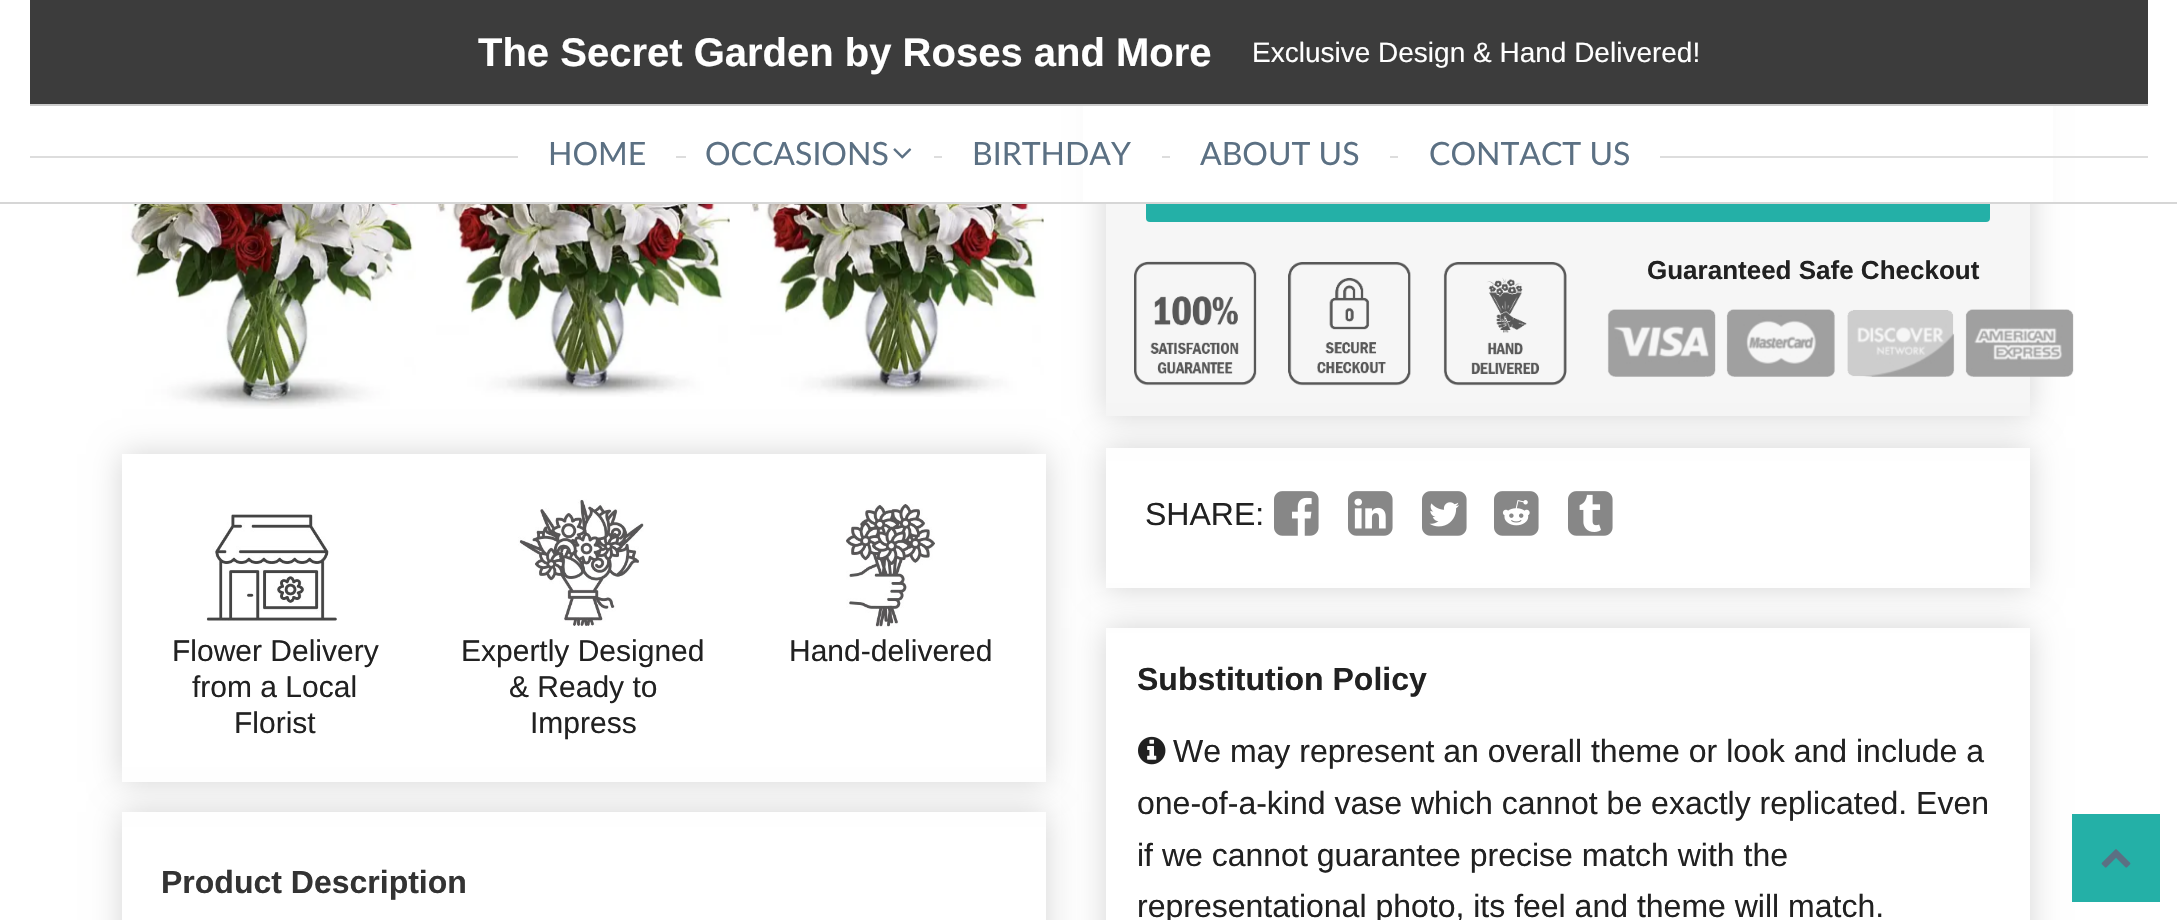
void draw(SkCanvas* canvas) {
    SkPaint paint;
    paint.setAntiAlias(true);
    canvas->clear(0xFFFFFFFF);
    paint.setColor(0xFFD4D4D4);
    paint.setMaskFilter(SkMaskFilter::MakeBlur(kNormal_SkBlurStyle, 15));
    canvas->drawRect(SkRect::MakeXYWH(1106, -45, 924, 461), paint);
    paint.setMaskFilter(nullptr);
    paint.setColor(0xFFF6F6F6);
    canvas->drawRect(SkRect::MakeXYWH(1106, 204, 924, 212), paint);
    paint.setColor(0xFF24B0A7);
    canvas->drawRoundRect(SkRect::MakeXYWH(1146, 130, 844, 92), 4, 4, paint);
    paint.setColor(0xFFFFFFFF);
    canvas->drawRect(SkRect::MakeXYWH(1083, 0, 970, 202), paint);
    paint.setColor(0xFFD6D6D6);
    canvas->drawRect(SkRect::MakeXYWH(0, 202, 2177, 2), paint);
    paint.setColor(0xFF3C3C3C);
    canvas->drawRect(SkRect::MakeXYWH(30, 0, 2118, 104), paint);
    paint.setColor(0xFFCCCCCC);
    canvas->drawRect(SkRect::MakeXYWH(30, 104, 2118, 2), paint);
    SkFont font1(fontMgr->matchFamilyStyle("Liberation Sans", SkFontStyle::Bold()), 40);
    font1.setSubpixel(true);
    paint.setColor(0xFFFFFFFF);
    canvas->drawString("The Secret Garden by Roses and More", 478, 66, font1, paint);
    SkFont font2(fontMgr->matchFamilyStyle("Liberation Sans", SkFontStyle::Normal()), 28);
    font2.setSubpixel(true);
    canvas->drawString("Exclusive Design & Hand Delivered!", 1252, 62, font2, paint);
    paint.setColor(0xFFDDDDDD);
    canvas->drawRect(SkRect::MakeXYWH(30, 156, 2118, 2), paint);
    paint.setColor(0xFFFFFFFF);
    canvas->drawRect(SkRect::MakeXYWH(518, 156, 158, 2), paint);
    SkFont font3(fontMgr->matchFamilyStyle("Lato", SkFontStyle::Normal()), 32);
    font3.setSubpixel(true);
    paint.setColor(0xFF5B7083);
    canvas->drawString("HOME", 548, 165, font3, paint);
    paint.setColor(0xFFFFFFFF);
    canvas->drawRect(SkRect::MakeXYWH(686, 156, 248, 2), paint);
    paint.setColor(0xFF5B7083);
    canvas->drawString("OCCASIONS", 705, 165, font3, paint);
    canvas->drawImageRect(SkImages::DeferredFromEncodedData(SkData::MakeFromFileName("img1.png")), SkRect::MakeXYWH(893, 148, 19, 11), SkSamplingOptions());
    paint.setColor(0xFFFFFFFF);
    canvas->drawRect(SkRect::MakeXYWH(942, 156, 220, 2), paint);
    paint.setColor(0xFF5B7083);
    canvas->drawString("BIRTHDAY", 972, 165, font3, paint);
    paint.setColor(0xFFFFFFFF);
    canvas->drawRect(SkRect::MakeXYWH(1170, 156, 220, 2), paint);
    paint.setColor(0xFF5B7083);
    canvas->drawString("ABOUT US", 1200, 165, font3, paint);
    paint.setColor(0xFFFFFFFF);
    canvas->drawRect(SkRect::MakeXYWH(1398, 156, 262, 2), paint);
    paint.setColor(0xFF5B7083);
    canvas->drawString("CONTACT US", 1429, 165, font3, paint);
    canvas->save();
    canvas->clipPath(SkPathBuilder(SkPathFillType::kEvenOdd).moveTo(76, 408).lineTo(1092, 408).lineTo(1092, 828).lineTo(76, 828).close().moveTo(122, 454).lineTo(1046, 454).lineTo(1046, 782).lineTo(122, 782).close().detach(), true);
    paint.setColor(0xFFD4D4D4);
    paint.setMaskFilter(SkMaskFilter::MakeBlur(kNormal_SkBlurStyle, 15));
    canvas->drawRect(SkRect::MakeXYWH(122, 454, 924, 328), paint);
    paint.setMaskFilter(nullptr);
    canvas->restore();
    canvas->drawImageRect(SkImages::DeferredFromEncodedData(SkData::MakeFromFileName("img2.png")), SkRect::MakeXYWH(122, 204, 294, 205), SkSamplingOptions());
    canvas->drawImageRect(SkImages::DeferredFromEncodedData(SkData::MakeFromFileName("img3.png")), SkRect::MakeXYWH(436, 204, 294, 193), SkSamplingOptions());
    canvas->drawImageRect(SkImages::DeferredFromEncodedData(SkData::MakeFromFileName("img4.png")), SkRect::MakeXYWH(750, 204, 294, 193), SkSamplingOptions());
    canvas->drawImageRect(SkImages::DeferredFromEncodedData(SkData::MakeFromFileName("img5.png")), SkRect::MakeXYWH(206, 514, 131, 107), SkSamplingOptions());
    SkFont font4(fontMgr->matchFamilyStyle("Liberation Sans", SkFontStyle::Normal()), 30);
    font4.setSubpixel(true);
    paint.setColor(0xFF212121);
    canvas->drawString("Flower Delivery", 172, 661, font4, paint);
    canvas->drawString("from a Local", 192, 697, font4, paint);
    canvas->drawString("Florist", 234, 733, font4, paint);
    canvas->drawImageRect(SkImages::DeferredFromEncodedData(SkData::MakeFromFileName("img6.png")), SkRect::MakeXYWH(518, 499, 126, 127), SkSamplingOptions());
    canvas->drawString("Expertly Designed", 461, 661, font4, paint);
    canvas->drawString("& Ready to", 509, 697, font4, paint);
    canvas->drawString("Impress", 530, 733, font4, paint);
    canvas->drawImageRect(SkImages::DeferredFromEncodedData(SkData::MakeFromFileName("img7.png")), SkRect::MakeXYWH(846, 504, 89, 123), SkSamplingOptions());
    canvas->drawString("Hand-delivered", 789, 661, font4, paint);
    canvas->save();
    canvas->clipPath(SkPathBuilder(SkPathFillType::kEvenOdd).moveTo(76, 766).lineTo(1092, 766).lineTo(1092, 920).lineTo(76, 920).close().moveTo(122, 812).lineTo(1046, 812).lineTo(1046, 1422).lineTo(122, 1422).close().detach(), true);
    paint.setColor(0xFFD4D4D4);
    paint.setMaskFilter(SkMaskFilter::MakeBlur(kNormal_SkBlurStyle, 15));
    canvas->drawRect(SkRect::MakeXYWH(122, 812, 924, 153), paint);
    paint.setMaskFilter(nullptr);
    canvas->restore();
    SkFont font5(fontMgr->matchFamilyStyle("Liberation Sans", SkFontStyle::Bold()), 32);
    font5.setSubpixel(true);
    paint.setColor(0xFF333333);
    canvas->drawString("Product Description", 161, 893, font5, paint);
    canvas->drawImageRect(SkImages::DeferredFromEncodedData(SkData::MakeFromFileName("img8.png")), SkRect::MakeXYWH(1134, 261, 433, 125), SkSamplingOptions());
    SkFont font6(fontMgr->matchFamilyStyle("Liberation Sans", SkFontStyle::Bold()), 26);
    font6.setSubpixel(true);
    paint.setColor(0xFF212121);
    canvas->drawString("Guaranteed Safe Checkout", 1647, 279, font6, paint);
    canvas->drawImageRect(SkImages::DeferredFromEncodedData(SkData::MakeFromFileName("img9.png")), SkRect::MakeXYWH(1607, 309, 467, 68), SkSamplingOptions());
    canvas->save();
    canvas->clipPath(SkPathBuilder(SkPathFillType::kEvenOdd).moveTo(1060, 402).lineTo(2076, 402).lineTo(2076, 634).lineTo(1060, 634).close().moveTo(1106, 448).lineTo(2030, 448).lineTo(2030, 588).lineTo(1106, 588).close().detach(), true);
    paint.setColor(0xFFD4D4D4);
    paint.setMaskFilter(SkMaskFilter::MakeBlur(kNormal_SkBlurStyle, 15));
    canvas->drawRect(SkRect::MakeXYWH(1106, 448, 924, 140), paint);
    paint.setMaskFilter(nullptr);
    canvas->restore();
    SkFont font7(fontMgr->matchFamilyStyle("Liberation Sans", SkFontStyle::Normal()), 32);
    font7.setSubpixel(true);
    paint.setColor(0xFF212121);
    canvas->drawString("SHARE:", 1145, 525, font7, paint);
    canvas->drawImageRect(SkImages::DeferredFromEncodedData(SkData::MakeFromFileName("img10.png")), SkRect::MakeXYWH(1274, 491, 45, 45), SkSamplingOptions());
    canvas->drawImageRect(SkImages::DeferredFromEncodedData(SkData::MakeFromFileName("img11.png")), SkRect::MakeXYWH(1348, 491, 45, 45), SkSamplingOptions());
    canvas->drawImageRect(SkImages::DeferredFromEncodedData(SkData::MakeFromFileName("img12.png")), SkRect::MakeXYWH(1422, 491, 45, 45), SkSamplingOptions());
    canvas->drawImageRect(SkImages::DeferredFromEncodedData(SkData::MakeFromFileName("img13.png")), SkRect::MakeXYWH(1494, 491, 45, 45), SkSamplingOptions());
    canvas->drawImageRect(SkImages::DeferredFromEncodedData(SkData::MakeFromFileName("img14.png")), SkRect::MakeXYWH(1568, 491, 45, 45), SkSamplingOptions());
    canvas->save();
    canvas->clipPath(SkPathBuilder(SkPathFillType::kEvenOdd).moveTo(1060, 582).lineTo(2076, 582).lineTo(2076, 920).lineTo(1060, 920).close().moveTo(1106, 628).lineTo(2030, 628).lineTo(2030, 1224).lineTo(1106, 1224).close().detach(), true);
    paint.setColor(0xFFD4D4D4);
    paint.setMaskFilter(SkMaskFilter::MakeBlur(kNormal_SkBlurStyle, 15));
    canvas->drawRect(SkRect::MakeXYWH(1106, 628, 924, 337), paint);
    paint.setMaskFilter(nullptr);
    canvas->restore();
    paint.setColor(0xFF212121);
    canvas->drawString("Substitution Policy", 1137, 690, font5, paint);
    canvas->drawImageRect(SkImages::DeferredFromEncodedData(SkData::MakeFromFileName("img15.png")), SkRect::MakeXYWH(1138, 736, 28, 29), SkSamplingOptions());
    canvas->drawString("We may represent an overall theme or look and include a", 1173, 762, font7, paint);
    canvas->drawString("one-of-a-kind vase which cannot be exactly replicated. Even", 1137, 814, font7, paint);
    canvas->drawString("if we cannot guarantee precise match with the", 1137, 866, font7, paint);
    canvas->drawString("representational photo, its feel and theme will match.", 1137, 917, font7, paint);
    paint.setColor(0xFF24B0A7);
    canvas->drawRect(SkRect::MakeXYWH(2072, 814, 88, 88), paint);
    canvas->drawImageRect(SkImages::DeferredFromEncodedData(SkData::MakeFromFileName("img16.png")), SkRect::MakeXYWH(2101, 849, 30, 19), SkSamplingOptions());
}
